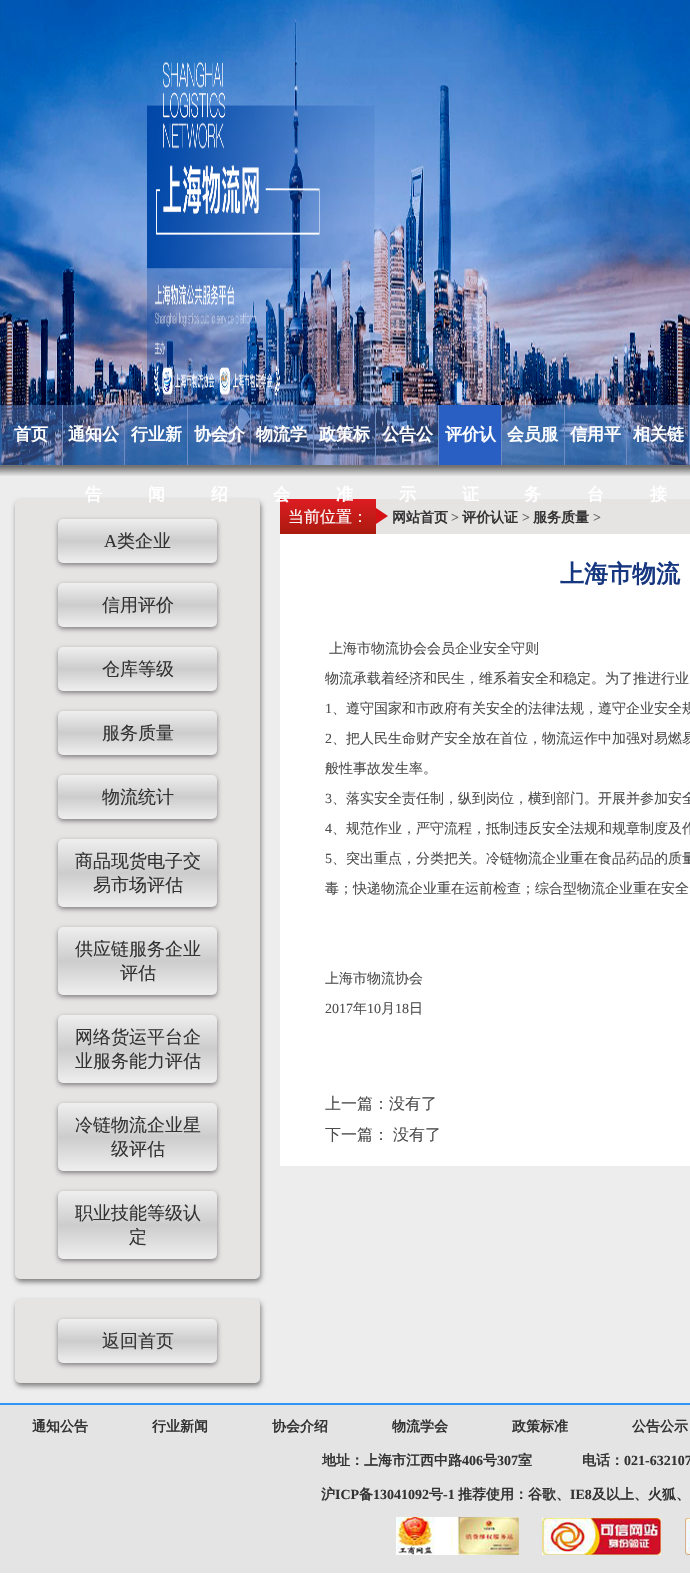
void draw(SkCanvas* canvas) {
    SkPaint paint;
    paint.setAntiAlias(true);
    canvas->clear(0xFFFFFFFF);
    canvas->drawImageRect(SkImages::DeferredFromEncodedData(SkData::MakeFromFileName("img1.png")), SkRect::MakeXYWH(0, 0, 690, 465), SkSamplingOptions());
    paint.setColor(0x804F79C0);
    canvas->drawRect(SkRect::MakeXYWH(0, 405, 689, 60), paint);
    paint.setColor(0xFF6F8CC3);
    canvas->drawRect(SkRect::MakeXYWH(62, 405, 1, 60), paint);
    SkFont font1(fontMgr->matchFamilyStyle("WenQuanYi Zen Hei", SkFontStyle::Bold()), 17);
    font1.setSubpixel(true);
    paint.setColor(0xFFFFFFFF);
    canvas->drawString("首页", 14, 440, font1, paint);
    paint.setColor(0xFF6F8CC3);
    canvas->drawRect(SkRect::MakeXYWH(124, 405, 1, 60), paint);
    paint.setColor(0xFFFFFFFF);
    canvas->drawString("通知公", 68, 440, font1, paint);
    paint.setColor(0xFFEDEDED);
    canvas->drawRect(SkRect::MakeXYWH(0, 465, 690, 938), paint);
    paint.setColor(0xFF7F7F7F);
    paint.setMaskFilter(SkMaskFilter::MakeBlur(kNormal_SkBlurStyle, 2.5f));
    canvas->drawRoundRect(SkRect::MakeXYWH(16, 502, 245, 780), 5, 5, paint);
    paint.setMaskFilter(nullptr);
    paint.setColor(0xFFE6E3E3);
    canvas->drawRoundRect(SkRect::MakeXYWH(15, 499, 245, 780), 5, 5, paint);
    paint.setColor(0xFFFFFFFF);
    canvas->drawString("告", 85, 500, font1, paint);
    paint.setColor(0xFF6F8CC3);
    canvas->drawRect(SkRect::MakeXYWH(187, 405, 1, 60), paint);
    paint.setColor(0xFFFFFFFF);
    canvas->drawString("行业新", 131, 440, font1, paint);
    canvas->drawString("闻", 148, 500, font1, paint);
    paint.setColor(0xFF6F8CC3);
    canvas->drawRect(SkRect::MakeXYWH(250, 405, 1, 60), paint);
    paint.setColor(0xFFFFFFFF);
    canvas->drawString("协会介", 194, 440, font1, paint);
    canvas->drawString("绍", 211, 500, font1, paint);
    paint.setColor(0xFF6F8CC3);
    canvas->drawRect(SkRect::MakeXYWH(313, 405, 1, 60), paint);
    paint.setColor(0xFFFFFFFF);
    canvas->drawString("物流学", 256, 440, font1, paint);
    {
        const SkColor colors[] = {0xFFDD1C22, 0xFFAA1B0F};
        const float stops[] = {0, 1};
        const SkPoint ends[] = {{328, 499}, {328, 534}};
        paint.setShader(SkGradientShader::MakeLinear(ends, colors, stops, 2, SkTileMode::kClamp));
        paint.setAlpha(255);
    }
    canvas->drawRect(SkRect::MakeXYWH(280, 499, 96, 35), paint);
    paint.setShader(nullptr);
    paint.setColor(0xFFFFFFFF);
    canvas->drawString("会", 273, 500, font1, paint);
    paint.setColor(0xFF6F8CC3);
    canvas->drawRect(SkRect::MakeXYWH(375, 405, 1, 60), paint);
    paint.setColor(0xFFFFFFFF);
    canvas->drawString("政策标", 319, 440, font1, paint);
    canvas->drawString("准", 336, 500, font1, paint);
    paint.setColor(0xFF6F8CC3);
    canvas->drawRect(SkRect::MakeXYWH(438, 405, 1, 60), paint);
    paint.setColor(0xFFFFFFFF);
    canvas->drawString("公告公", 382, 440, font1, paint);
    paint.setColor(0xFFE6E3E3);
    canvas->drawRect(SkRect::MakeXYWH(376, 499, 314, 35), paint);
    paint.setColor(0xFFFFFFFF);
    canvas->drawString("示", 399, 500, font1, paint);
    paint.setColor(0xFF295FC3);
    canvas->drawRect(SkRect::MakeXYWH(439, 405, 62, 60), paint);
    paint.setColor(0xFF6F8CC3);
    canvas->drawRect(SkRect::MakeXYWH(501, 405, 1, 60), paint);
    paint.setColor(0xFFFFFFFF);
    canvas->drawString("评价认", 445, 440, font1, paint);
    canvas->drawString("证", 462, 500, font1, paint);
    paint.setColor(0xFF6F8CC3);
    canvas->drawRect(SkRect::MakeXYWH(564, 405, 1, 60), paint);
    paint.setColor(0xFFFFFFFF);
    canvas->drawString("会员服", 507, 440, font1, paint);
    canvas->drawString("务", 524, 500, font1, paint);
    paint.setColor(0xFF6F8CC3);
    canvas->drawRect(SkRect::MakeXYWH(626, 405, 1, 60), paint);
    paint.setColor(0xFFFFFFFF);
    canvas->drawString("信用平", 570, 440, font1, paint);
    canvas->drawString("台", 587, 500, font1, paint);
    paint.setColor(0xFF6F8CC3);
    canvas->drawRect(SkRect::MakeXYWH(689, 405, 1, 60), paint);
    paint.setColor(0xFFFFFFFF);
    canvas->drawString("相关链", 633, 440, font1, paint);
    canvas->drawString("接", 650, 500, font1, paint);
    canvas->drawImageRect(SkImages::DeferredFromEncodedData(SkData::MakeFromFileName("img2.png")), SkRect::MakeXYWH(0, 465, 690, 11), SkSamplingOptions());
    paint.setColor(0xFF7F7F7F);
    paint.setMaskFilter(SkMaskFilter::MakeBlur(kNormal_SkBlurStyle, 2.5f));
    canvas->drawRoundRect(SkRect::MakeXYWH(58, 521, 159, 44), 5, 5, paint);
    paint.setMaskFilter(nullptr);
    {
        const SkColor colors[] = {0xFFEFEFEF, 0xFFCCCCCC, 0xFFEFEFEF};
        const float stops[] = {0, 0.5f, 1};
        const SkPoint ends[] = {{138, 519}, {138, 563}};
        paint.setShader(SkGradientShader::MakeLinear(ends, colors, stops, 3, SkTileMode::kClamp));
        paint.setAlpha(255);
    }
    canvas->drawRoundRect(SkRect::MakeXYWH(58, 519, 159, 44), 5, 5, paint);
    SkFont font2(fontMgr->matchFamilyStyle("Liberation Serif", SkFontStyle::Normal()), 18);
    font2.setSubpixel(true);
    paint.setShader(nullptr);
    paint.setColor(0xFF333333);
    canvas->drawString("A", 104, 547, font2, paint);
    SkFont font3(fontMgr->matchFamilyStyle("WenQuanYi Zen Hei", SkFontStyle(500, SkFontStyle::kNormal_Width, SkFontStyle::kUpright_Slant)), 18);
    font3.setSubpixel(true);
    canvas->drawString("类企业", 117, 547, font3, paint);
    paint.setColor(0xFF7F7F7F);
    paint.setMaskFilter(SkMaskFilter::MakeBlur(kNormal_SkBlurStyle, 2.5f));
    canvas->drawRoundRect(SkRect::MakeXYWH(58, 585, 159, 44), 5, 5, paint);
    paint.setMaskFilter(nullptr);
    {
        const SkColor colors[] = {0xFFEFEFEF, 0xFFCCCCCC, 0xFFEFEFEF};
        const float stops[] = {0, 0.5f, 1};
        const SkPoint ends[] = {{138, 583}, {138, 627}};
        paint.setShader(SkGradientShader::MakeLinear(ends, colors, stops, 3, SkTileMode::kClamp));
        paint.setAlpha(255);
    }
    canvas->drawRoundRect(SkRect::MakeXYWH(58, 583, 159, 44), 5, 5, paint);
    paint.setShader(nullptr);
    paint.setColor(0xFF333333);
    canvas->drawString("信用评价", 102, 611, font3, paint);
    paint.setColor(0xFF7F7F7F);
    paint.setMaskFilter(SkMaskFilter::MakeBlur(kNormal_SkBlurStyle, 2.5f));
    canvas->drawRoundRect(SkRect::MakeXYWH(58, 649, 159, 44), 5, 5, paint);
    paint.setMaskFilter(nullptr);
    {
        const SkColor colors[] = {0xFFEFEFEF, 0xFFCCCCCC, 0xFFEFEFEF};
        const float stops[] = {0, 0.5f, 1};
        const SkPoint ends[] = {{138, 647}, {138, 691}};
        paint.setShader(SkGradientShader::MakeLinear(ends, colors, stops, 3, SkTileMode::kClamp));
        paint.setAlpha(255);
    }
    canvas->drawRoundRect(SkRect::MakeXYWH(58, 647, 159, 44), 5, 5, paint);
    paint.setShader(nullptr);
    paint.setColor(0xFF333333);
    canvas->drawString("仓库等级", 102, 675, font3, paint);
    paint.setColor(0xFF7F7F7F);
    paint.setMaskFilter(SkMaskFilter::MakeBlur(kNormal_SkBlurStyle, 2.5f));
    canvas->drawRoundRect(SkRect::MakeXYWH(58, 713, 159, 44), 5, 5, paint);
    paint.setMaskFilter(nullptr);
    {
        const SkColor colors[] = {0xFFEFEFEF, 0xFFCCCCCC, 0xFFEFEFEF};
        const float stops[] = {0, 0.5f, 1};
        const SkPoint ends[] = {{138, 711}, {138, 755}};
        paint.setShader(SkGradientShader::MakeLinear(ends, colors, stops, 3, SkTileMode::kClamp));
        paint.setAlpha(255);
    }
    canvas->drawRoundRect(SkRect::MakeXYWH(58, 711, 159, 44), 5, 5, paint);
    paint.setShader(nullptr);
    paint.setColor(0xFF333333);
    canvas->drawString("服务质量", 102, 739, font3, paint);
    paint.setColor(0xFF7F7F7F);
    paint.setMaskFilter(SkMaskFilter::MakeBlur(kNormal_SkBlurStyle, 2.5f));
    canvas->drawRoundRect(SkRect::MakeXYWH(58, 777, 159, 44), 5, 5, paint);
    paint.setMaskFilter(nullptr);
    {
        const SkColor colors[] = {0xFFEFEFEF, 0xFFCCCCCC, 0xFFEFEFEF};
        const float stops[] = {0, 0.5f, 1};
        const SkPoint ends[] = {{138, 775}, {138, 819}};
        paint.setShader(SkGradientShader::MakeLinear(ends, colors, stops, 3, SkTileMode::kClamp));
        paint.setAlpha(255);
    }
    canvas->drawRoundRect(SkRect::MakeXYWH(58, 775, 159, 44), 5, 5, paint);
    paint.setShader(nullptr);
    paint.setColor(0xFF333333);
    canvas->drawString("物流统计", 102, 803, font3, paint);
    paint.setColor(0xFF7F7F7F);
    paint.setMaskFilter(SkMaskFilter::MakeBlur(kNormal_SkBlurStyle, 2.5f));
    canvas->drawRoundRect(SkRect::MakeXYWH(58, 841, 159, 68), 5, 5, paint);
    paint.setMaskFilter(nullptr);
    {
        const SkColor colors[] = {0xFFEFEFEF, 0xFFCCCCCC, 0xFFEFEFEF};
        const float stops[] = {0, 0.5f, 1};
        const SkPoint ends[] = {{138, 839}, {138, 907}};
        paint.setShader(SkGradientShader::MakeLinear(ends, colors, stops, 3, SkTileMode::kClamp));
        paint.setAlpha(255);
    }
    canvas->drawRoundRect(SkRect::MakeXYWH(58, 839, 159, 68), 5, 5, paint);
    paint.setShader(nullptr);
    paint.setColor(0xFF333333);
    canvas->drawString("商品现货电子交", 75, 867, font3, paint);
    canvas->drawString("易市场评估", 93, 891, font3, paint);
    paint.setColor(0xFF7F7F7F);
    paint.setMaskFilter(SkMaskFilter::MakeBlur(kNormal_SkBlurStyle, 2.5f));
    canvas->drawRoundRect(SkRect::MakeXYWH(58, 929, 159, 68), 5, 5, paint);
    paint.setMaskFilter(nullptr);
    {
        const SkColor colors[] = {0xFFEFEFEF, 0xFFCCCCCC, 0xFFEFEFEF};
        const float stops[] = {0, 0.5f, 1};
        const SkPoint ends[] = {{138, 927}, {138, 995}};
        paint.setShader(SkGradientShader::MakeLinear(ends, colors, stops, 3, SkTileMode::kClamp));
        paint.setAlpha(255);
    }
    canvas->drawRoundRect(SkRect::MakeXYWH(58, 927, 159, 68), 5, 5, paint);
    paint.setShader(nullptr);
    paint.setColor(0xFF333333);
    canvas->drawString("供应链服务企业", 75, 955, font3, paint);
    canvas->drawString("评估", 120, 979, font3, paint);
    paint.setColor(0xFF7F7F7F);
    paint.setMaskFilter(SkMaskFilter::MakeBlur(kNormal_SkBlurStyle, 2.5f));
    canvas->drawRoundRect(SkRect::MakeXYWH(58, 1017, 159, 68), 5, 5, paint);
    paint.setMaskFilter(nullptr);
    {
        const SkColor colors[] = {0xFFEFEFEF, 0xFFCCCCCC, 0xFFEFEFEF};
        const float stops[] = {0, 0.5f, 1};
        const SkPoint ends[] = {{138, 1015}, {138, 1083}};
        paint.setShader(SkGradientShader::MakeLinear(ends, colors, stops, 3, SkTileMode::kClamp));
        paint.setAlpha(255);
    }
    canvas->drawRoundRect(SkRect::MakeXYWH(58, 1015, 159, 68), 5, 5, paint);
    paint.setShader(nullptr);
    paint.setColor(0xFF333333);
    canvas->drawString("网络货运平台企", 75, 1043, font3, paint);
    canvas->drawString("业服务能力评估", 75, 1067, font3, paint);
    paint.setColor(0xFF7F7F7F);
    paint.setMaskFilter(SkMaskFilter::MakeBlur(kNormal_SkBlurStyle, 2.5f));
    canvas->drawRoundRect(SkRect::MakeXYWH(58, 1105, 159, 68), 5, 5, paint);
    paint.setMaskFilter(nullptr);
    {
        const SkColor colors[] = {0xFFEFEFEF, 0xFFCCCCCC, 0xFFEFEFEF};
        const float stops[] = {0, 0.5f, 1};
        const SkPoint ends[] = {{138, 1103}, {138, 1171}};
        paint.setShader(SkGradientShader::MakeLinear(ends, colors, stops, 3, SkTileMode::kClamp));
        paint.setAlpha(255);
    }
    canvas->drawRoundRect(SkRect::MakeXYWH(58, 1103, 159, 68), 5, 5, paint);
    paint.setShader(nullptr);
    paint.setColor(0xFF333333);
    canvas->drawString("冷链物流企业星", 75, 1131, font3, paint);
    canvas->drawString("级评估", 111, 1155, font3, paint);
    paint.setColor(0xFF7F7F7F);
    paint.setMaskFilter(SkMaskFilter::MakeBlur(kNormal_SkBlurStyle, 2.5f));
    canvas->drawRoundRect(SkRect::MakeXYWH(58, 1193, 159, 68), 5, 5, paint);
    paint.setMaskFilter(nullptr);
    {
        const SkColor colors[] = {0xFFEFEFEF, 0xFFCCCCCC, 0xFFEFEFEF};
        const float stops[] = {0, 0.5f, 1};
        const SkPoint ends[] = {{138, 1191}, {138, 1259}};
        paint.setShader(SkGradientShader::MakeLinear(ends, colors, stops, 3, SkTileMode::kClamp));
        paint.setAlpha(255);
    }
    canvas->drawRoundRect(SkRect::MakeXYWH(58, 1191, 159, 68), 5, 5, paint);
    paint.setShader(nullptr);
    paint.setColor(0xFF333333);
    canvas->drawString("职业技能等级认", 75, 1219, font3, paint);
    canvas->drawString("定", 129, 1243, font3, paint);
    paint.setColor(0xFF7F7F7F);
    paint.setMaskFilter(SkMaskFilter::MakeBlur(kNormal_SkBlurStyle, 2.5f));
    canvas->drawRoundRect(SkRect::MakeXYWH(16, 1302, 245, 84), 5, 5, paint);
    paint.setMaskFilter(nullptr);
    paint.setColor(0xFFE6E3E3);
    canvas->drawRoundRect(SkRect::MakeXYWH(15, 1299, 245, 84), 5, 5, paint);
    paint.setColor(0xFF7F7F7F);
    paint.setMaskFilter(SkMaskFilter::MakeBlur(kNormal_SkBlurStyle, 2.5f));
    canvas->drawRoundRect(SkRect::MakeXYWH(58, 1321, 159, 44), 5, 5, paint);
    paint.setMaskFilter(nullptr);
    {
        const SkColor colors[] = {0xFFEFEFEF, 0xFFCCCCCC, 0xFFEFEFEF};
        const float stops[] = {0, 0.5f, 1};
        const SkPoint ends[] = {{138, 1319}, {138, 1363}};
        paint.setShader(SkGradientShader::MakeLinear(ends, colors, stops, 3, SkTileMode::kClamp));
        paint.setAlpha(255);
    }
    canvas->drawRoundRect(SkRect::MakeXYWH(58, 1319, 159, 44), 5, 5, paint);
    paint.setShader(nullptr);
    paint.setColor(0xFF333333);
    canvas->drawString("返回首页", 102, 1347, font3, paint);
    paint.setColor(0xFFFFFFFF);
    canvas->drawRect(SkRect::MakeXYWH(280, 534, 410, 632), paint);
    SkFont font4(fontMgr->matchFamilyStyle("WenQuanYi Zen Hei", SkFontStyle(500, SkFontStyle::kNormal_Width, SkFontStyle::kUpright_Slant)), 16);
    font4.setSubpixel(true);
    canvas->drawString("当前位置：", 288, 522, font4, paint);
    paint.setColor(0xFFD61116);
    canvas->drawPath(SkPathBuilder().moveTo(376, 524).lineTo(376, 508).lineTo(388, 516).close().detach(), paint);
    SkFont font5(fontMgr->matchFamilyStyle("WenQuanYi Zen Hei", SkFontStyle::Bold()), 14);
    font5.setSubpixel(true);
    paint.setColor(0xFF333333);
    canvas->drawString("网站首页", 392, 522, font5, paint);
    SkFont font6(fontMgr->matchFamilyStyle("Liberation Serif", SkFontStyle::Bold()), 14);
    font6.setSubpixel(true);
    paint.setColor(0xFF666666);
    canvas->drawString(">", 451, 522, font6, paint);
    paint.setColor(0xFF333333);
    canvas->drawString("评价认证", 462, 522, font5, paint);
    paint.setColor(0xFF666666);
    canvas->drawString(">", 522, 522, font6, paint);
    paint.setColor(0xFF333333);
    canvas->drawString("服务质量", 533, 522, font5, paint);
    paint.setColor(0xFF666666);
    canvas->drawString(">", 593, 522, font6, paint);
    SkFont font7(fontMgr->matchFamilyStyle("WenQuanYi Zen Hei", SkFontStyle::Bold()), 24);
    font7.setSubpixel(true);
    paint.setColor(0xFF163780);
    canvas->drawString("上海市物流", 560, 582, font7, paint);
    SkFont font8(fontMgr->matchFamilyStyle("WenQuanYi Zen Hei", SkFontStyle(500, SkFontStyle::kNormal_Width, SkFontStyle::kUpright_Slant)), 14);
    font8.setSubpixel(true);
    paint.setColor(0xFF4D4D4D);
    canvas->drawString("上海市物流协会会员企业安全守则", 329, 653, font8, paint);
    canvas->drawString("物流承载着经济和民生，维系着安全和稳定。为了推进行业", 325, 683, font8, paint);
    SkFont font9(fontMgr->matchFamilyStyle("Liberation Serif", SkFontStyle::Normal()), 14);
    font9.setSubpixel(true);
    canvas->drawString("1", 325, 713, font9, paint);
    canvas->drawString("、遵守国家和市政府有关安全的法律法规，遵守企业安全规", 332, 713, font8, paint);
    canvas->drawString("2", 325, 743, font9, paint);
    canvas->drawString("、把人民生命财产安全放在首位，物流运作中加强对易燃易", 332, 743, font8, paint);
    canvas->drawString("般性事故发生率。", 325, 773, font8, paint);
    canvas->drawString("3", 325, 803, font9, paint);
    canvas->drawString("、落实安全责任制，纵到岗位，横到部门。开展并参加安全", 332, 803, font8, paint);
    canvas->drawString("4", 325, 833, font9, paint);
    canvas->drawString("、规范作业，严守流程，抵制违反安全法规和规章制度及作", 332, 833, font8, paint);
    canvas->drawString("5", 325, 863, font9, paint);
    canvas->drawString("、突出重点，分类把关。冷链物流企业重在食品药品的质量", 332, 863, font8, paint);
    canvas->drawString("毒；快递物流企业重在运前检查；综合型物流企业重在安全", 325, 893, font8, paint);
    canvas->drawString("上海市物流协会", 325, 983, font8, paint);
    canvas->drawString("2017", 325, 1013, font9, paint);
    canvas->drawString("年", 353, 1013, font8, paint);
    canvas->drawString("10", 367, 1013, font9, paint);
    canvas->drawString("月", 381, 1013, font8, paint);
    canvas->drawString("18", 395, 1013, font9, paint);
    canvas->drawString("日", 409, 1013, font8, paint);
    canvas->drawString("上一篇：没有了", 325, 1109, font4, paint);
    canvas->drawString("下一篇：", 325, 1140, font4, paint);
    canvas->drawString("没有了", 393, 1140, font4, paint);
    paint.setColor(0xFFE4E4E4);
    canvas->drawRect(SkRect::MakeXYWH(0, 1405, 690, 168), paint);
    paint.setColor(0xFF2F96F6);
    canvas->drawRect(SkRect::MakeXYWH(0, 1403, 690, 2), paint);
    paint.setColor(0xFF333333);
    canvas->drawString("通知公告", 32, 1431, font5, paint);
    canvas->drawString("行业新闻", 152, 1431, font5, paint);
    canvas->drawString("协会介绍", 272, 1431, font5, paint);
    canvas->drawString("物流学会", 392, 1431, font5, paint);
    canvas->drawString("政策标准", 512, 1431, font5, paint);
    canvas->drawString("公告公示", 632, 1431, font5, paint);
    canvas->drawString("地址：上海市江西中路", 322, 1465, font5, paint);
    canvas->drawString("406", 462, 1465, font6, paint);
    canvas->drawString("号", 483, 1465, font5, paint);
    canvas->drawString("307", 497, 1465, font6, paint);
    canvas->drawString("室", 518, 1465, font5, paint);
    canvas->drawString("电话：", 582, 1465, font5, paint);
    canvas->drawString("021-632107", 624, 1465, font6, paint);
    canvas->drawString("沪", 321, 1499, font5, paint);
    canvas->drawString("ICP", 335, 1499, font6, paint);
    canvas->drawString("备", 359, 1499, font5, paint);
    canvas->drawString("13041092", 373, 1499, font6, paint);
    canvas->drawString("号", 429, 1499, font5, paint);
    canvas->drawString("-1", 443, 1499, font6, paint);
    canvas->drawString("推荐使用：谷歌、", 458, 1499, font5, paint);
    canvas->drawString("IE8", 570, 1499, font6, paint);
    canvas->drawString("及以上、火狐、", 592, 1499, font5, paint);
    canvas->drawImageRect(SkImages::DeferredFromEncodedData(SkData::MakeFromFileName("img3.png")), SkRect::MakeXYWH(396, 1517, 123, 38), SkSamplingOptions());
    canvas->drawImageRect(SkImages::DeferredFromEncodedData(SkData::MakeFromFileName("img4.png")), SkRect::MakeXYWH(542, 1518, 119, 37), SkSamplingOptions());
    canvas->drawImageRect(SkImages::DeferredFromEncodedData(SkData::MakeFromFileName("img5.png")), SkRect::MakeXYWH(685, 1518, 5, 37), SkSamplingOptions());
}
